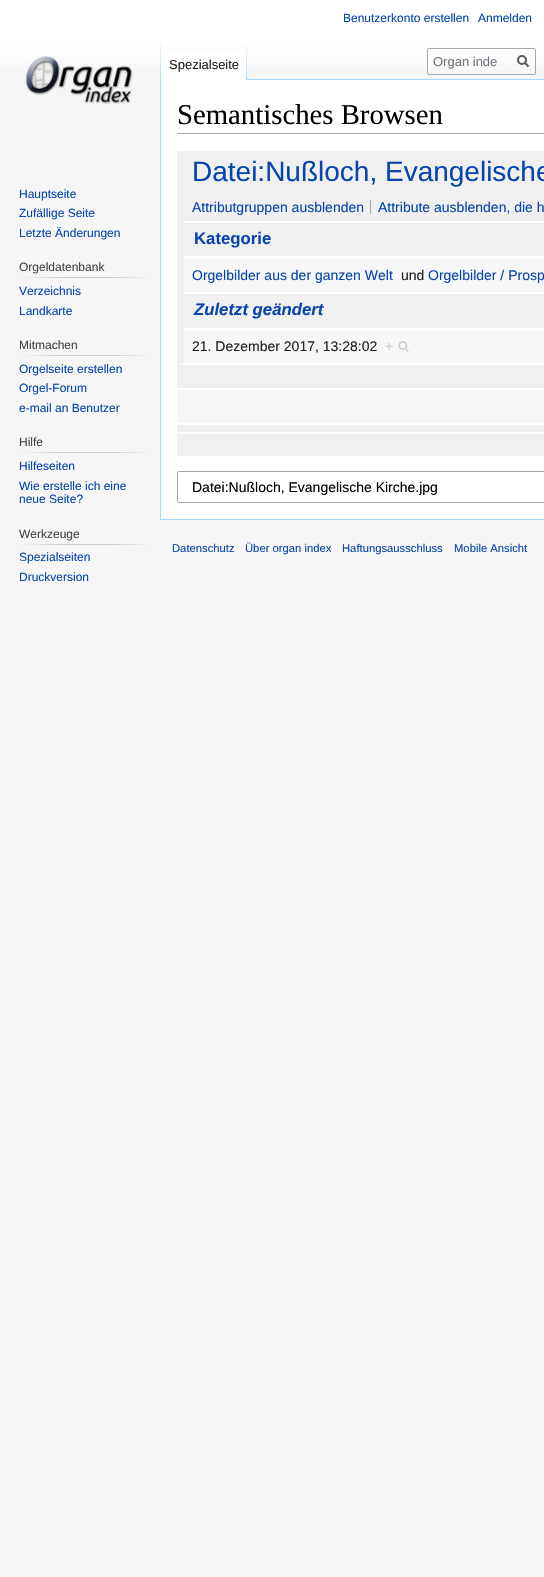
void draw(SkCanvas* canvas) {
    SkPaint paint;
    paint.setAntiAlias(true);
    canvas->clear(0xFFF6F6F6);
    {
        const SkColor colors[] = {0xFFFFFFFF, 0xFFF6F6F6};
        const float stops[] = {0.5f, 1};
        const SkPoint ends[] = {{500, 0}, {500, 80}};
        paint.setShader(SkGradientShader::MakeLinear(ends, colors, stops, 2, SkTileMode::kClamp));
        paint.setAlpha(255);
    }
    canvas->drawRect(SkRect::MakeXYWH(0, 0, 544, 69), paint);
    SkFont font1(fontMgr->matchFamilyStyle("Liberation Sans", SkFontStyle::Normal()), 12);
    font1.setSubpixel(true);
    paint.setShader(nullptr);
    paint.setColor(0xFF0645AD);
    canvas->drawString("Benutzerkonto erstellen", 343, 22, font1, paint);
    canvas->drawString("Anmelden", 478, 22, font1, paint);
    paint.setColor(0xFFA7D7F9);
    canvas->drawRect(SkRect::MakeXYWH(160, 519, 384, 1), paint);
    canvas->drawRect(SkRect::MakeXYWH(160, 79, 1, 441), paint);
    {
        const SkColor colors[] = {0x00A7D7F9, 0xFFA7D7F9};
        const float stops[] = {0, 1};
        const SkPoint ends[] = {{161, 40}, {161, 80}};
        paint.setShader(SkGradientShader::MakeLinear(ends, colors, stops, 2, SkTileMode::kClamp));
        paint.setAlpha(255);
    }
    canvas->drawRect(SkRect::MakeXYWH(160, 40, 1, 40), paint);
    paint.setShader(nullptr);
    paint.setColor(0xFFFFFFFF);
    canvas->drawRect(SkRect::MakeXYWH(161, 51, 85, 29), paint);
    {
        const SkColor colors[] = {0xFFFFFFFF, 0xFFA7D7F9};
        const float stops[] = {0, 1};
        const SkPoint ends[] = {{247, 40}, {247, 80}};
        paint.setShader(SkGradientShader::MakeLinear(ends, colors, stops, 2, SkTileMode::kClamp));
        paint.setAlpha(255);
    }
    canvas->drawRect(SkRect::MakeXYWH(246, 40, 1, 40), paint);
    SkFont font2(fontMgr->matchFamilyStyle("Liberation Sans", SkFontStyle::Normal()), 13);
    font2.setSubpixel(true);
    paint.setShader(nullptr);
    paint.setColor(0xFF222222);
    canvas->drawString("Spezialseite", 169, 69, font2, paint);
    paint.setStyle(SkPaint::kStroke_Style);
    paint.setStrokeWidth(1);
    paint.setColor(0xFFA2A9B1);
    canvas->drawRoundRect(SkRect::MakeXYWH(427.5f, 48.5f, 108, 26), 1.5f, 1.5f, paint);
    paint.setStyle(SkPaint::kFill_Style);
    paint.setColor(0xFF72777D);
    canvas->drawString("Organ inde", 433, 66, font2, paint);
    paint.setStyle(SkPaint::kStroke_Style);
    paint.setStrokeWidth(2);
    paint.setColor(0xFF54595D);
    canvas->drawPath(SkPathBuilder().moveTo(528.5f, 66.5f).lineTo(524.5f, 62.5f).detach(), paint);
    canvas->drawCircle(522, 60, 4, paint);
    canvas->drawImageRect(SkImages::DeferredFromEncodedData(SkData::MakeFromFileName("img1.png")), SkRect::MakeXYWH(25, 56, 108, 48), SkSamplingOptions());
    paint.setStyle(SkPaint::kFill_Style);
    paint.setColor(0xFF0645AD);
    canvas->drawString("Hauptseite", 19, 198, font1, paint);
    canvas->drawString("Zufällige Seite", 19, 217, font1, paint);
    canvas->drawString("Letzte Änderungen", 19, 237, font1, paint);
    paint.setColor(0xFF444444);
    canvas->drawString("Orgeldatenbank", 19, 271, font1, paint);
    {
        const SkColor colors[] = {0xFFF6F6F6, 0xFFC8CCD1, 0xFFC8CCD1, 0xFFF6F6F6};
        const float stops[] = {0, 0.35f, 0.7f, 1};
        const SkPoint ends[] = {{19, 278}, {150, 278}};
        paint.setShader(SkGradientShader::MakeLinear(ends, colors, stops, 4, SkTileMode::kClamp));
        paint.setAlpha(255);
    }
    canvas->drawRect(SkRect::MakeXYWH(19, 277, 131, 1), paint);
    paint.setShader(nullptr);
    paint.setColor(0xFF0645AD);
    canvas->drawString("Verzeichnis", 19, 295, font1, paint);
    canvas->drawString("Landkarte", 19, 315, font1, paint);
    paint.setColor(0xFF444444);
    canvas->drawString("Mitmachen", 19, 349, font1, paint);
    {
        const SkColor colors[] = {0xFFF6F6F6, 0xFFC8CCD1, 0xFFC8CCD1, 0xFFF6F6F6};
        const float stops[] = {0, 0.35f, 0.7f, 1};
        const SkPoint ends[] = {{19, 356}, {150, 356}};
        paint.setShader(SkGradientShader::MakeLinear(ends, colors, stops, 4, SkTileMode::kClamp));
        paint.setAlpha(255);
    }
    canvas->drawRect(SkRect::MakeXYWH(19, 355, 131, 1), paint);
    paint.setShader(nullptr);
    paint.setColor(0xFF0645AD);
    canvas->drawString("Orgelseite erstellen", 19, 373, font1, paint);
    canvas->drawString("Orgel-Forum", 19, 392, font1, paint);
    canvas->drawString("e-mail an Benutzer", 19, 412, font1, paint);
    paint.setColor(0xFF444444);
    canvas->drawString("Hilfe", 19, 446, font1, paint);
    {
        const SkColor colors[] = {0xFFF6F6F6, 0xFFC8CCD1, 0xFFC8CCD1, 0xFFF6F6F6};
        const float stops[] = {0, 0.35f, 0.7f, 1};
        const SkPoint ends[] = {{19, 453}, {150, 453}};
        paint.setShader(SkGradientShader::MakeLinear(ends, colors, stops, 4, SkTileMode::kClamp));
        paint.setAlpha(255);
    }
    canvas->drawRect(SkRect::MakeXYWH(19, 452, 131, 1), paint);
    paint.setShader(nullptr);
    paint.setColor(0xFF0645AD);
    canvas->drawString("Hilfeseiten", 19, 470, font1, paint);
    canvas->drawString("Wie erstelle ich eine", 19, 490, font1, paint);
    canvas->drawString("neue Seite?", 19, 503, font1, paint);
    paint.setColor(0xFF444444);
    canvas->drawString("Werkzeuge", 19, 538, font1, paint);
    {
        const SkColor colors[] = {0xFFF6F6F6, 0xFFC8CCD1, 0xFFC8CCD1, 0xFFF6F6F6};
        const float stops[] = {0, 0.35f, 0.7f, 1};
        const SkPoint ends[] = {{19, 545}, {150, 545}};
        paint.setShader(SkGradientShader::MakeLinear(ends, colors, stops, 4, SkTileMode::kClamp));
        paint.setAlpha(255);
    }
    canvas->drawRect(SkRect::MakeXYWH(19, 544, 131, 1), paint);
    paint.setShader(nullptr);
    paint.setColor(0xFF0645AD);
    canvas->drawString("Spezialseiten", 19, 561, font1, paint);
    canvas->drawString("Druckversion", 19, 581, font1, paint);
    paint.setColor(0xFFFFFFFF);
    canvas->drawRect(SkRect::MakeXYWH(161, 80, 383, 439), paint);
    paint.setColor(0xFFA7D7F9);
    canvas->drawRect(SkRect::MakeXYWH(247, 79, 297, 1), paint);
    paint.setColor(0xFFA2A9B1);
    canvas->drawRect(SkRect::MakeXYWH(177, 133, 367, 1), paint);
    SkFont font3(fontMgr->matchFamilyStyle("Liberation Serif", SkFontStyle::Normal()), 28.75f);
    font3.setSubpixel(true);
    paint.setColor(0xFF000000);
    canvas->drawString("Semantisches Browsen", 177, 124, font3, paint);
    paint.setColor(0xFFF0F0F0);
    canvas->drawRect(SkRect::MakeXYWH(177, 151, 367, 42), paint);
    SkFont font4(fontMgr->matchFamilyStyle("Liberation Sans", SkFontStyle::Normal()), 28);
    font4.setSubpixel(true);
    paint.setColor(0xFF0645AD);
    canvas->drawString("Datei:Nußloch, Evangelische", 192, 181, font4, paint);
    paint.setColor(0xFFF0F0F0);
    canvas->drawRect(SkRect::MakeXYWH(177, 193, 367, 28), paint);
    SkFont font5(fontMgr->matchFamilyStyle("Liberation Sans", SkFontStyle::Normal()), 14);
    font5.setSubpixel(true);
    paint.setColor(0xFF0645AD);
    canvas->drawString("Attributgruppen ausblenden", 192, 212, font5, paint);
    paint.setColor(0xFFA2A9B1);
    canvas->drawRect(SkRect::MakeXYWH(370, 200, 1, 14), paint);
    paint.setColor(0xFF0645AD);
    canvas->drawString("Attribute ausblenden, die h", 378, 212, font5, paint);
    paint.setColor(0xFFF0F0F0);
    canvas->drawPath(SkPathBuilder().moveTo(177, 365).lineTo(177, 221).lineTo(184, 221).lineTo(184, 363).close().detach(), paint);
    canvas->drawRect(SkRect::MakeXYWH(184, 223, 360, 33), paint);
    SkFont font6(fontMgr->matchFamilyStyle("Liberation Sans", SkFontStyle::Bold()), 16.75f);
    font6.setSubpixel(true);
    paint.setColor(0xFF0645AD);
    canvas->drawString("Kategorie", 194, 244, font6, paint);
    paint.setColor(0xFFF7F7F7);
    canvas->drawRect(SkRect::MakeXYWH(184, 258, 360, 34), paint);
    paint.setColor(0xFF0645AD);
    canvas->drawString("Orgelbilder aus der ganzen Welt", 192, 280, font5, paint);
    paint.setColor(0xFF222222);
    canvas->drawString("und", 401, 280, font5, paint);
    paint.setColor(0xFF0645AD);
    canvas->drawString("Orgelbilder / Prosp", 428, 280, font5, paint);
    paint.setColor(0xFFF0F0F0);
    canvas->drawRect(SkRect::MakeXYWH(184, 294, 360, 34), paint);
    SkFont font7(fontMgr->matchFamilyStyle("Liberation Sans", SkFontStyle::BoldItalic()), 16.75f);
    font7.setSubpixel(true);
    paint.setColor(0xFF0645AD);
    canvas->drawString("Zuletzt geändert", 194, 315, font7, paint);
    paint.setColor(0xFFF7F7F7);
    canvas->drawRect(SkRect::MakeXYWH(184, 330, 360, 33), paint);
    paint.setColor(0xFF222222);
    canvas->drawString("21. Dezember 2017, 13:28:02", 192, 351, font5, paint);
    paint.setColor(0xFFCCCCCC);
    canvas->drawString("+", 385, 351, font5, paint);
    canvas->drawImageRect(SkImages::DeferredFromEncodedData(SkData::MakeFromFileName("img2.png")), SkRect::MakeXYWH(398, 341, 11, 11), SkSamplingOptions());
    paint.setColor(0xFFF0F0F0);
    canvas->drawRect(SkRect::MakeXYWH(177, 365, 367, 23), paint);
    paint.setColor(0xFFF7F7F7);
    canvas->drawRect(SkRect::MakeXYWH(177, 390, 367, 33), paint);
    paint.setColor(0xFFF0F0F0);
    canvas->drawRect(SkRect::MakeXYWH(177, 425, 367, 7), paint);
    canvas->drawRect(SkRect::MakeXYWH(177, 434, 367, 22), paint);
    paint.setStyle(SkPaint::kStroke_Style);
    paint.setStrokeWidth(1);
    paint.setColor(0xFFA2A9B1);
    canvas->drawRoundRect(SkRect::MakeXYWH(177.5f, 471.5f, 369, 31), 1.5f, 1.5f, paint);
    paint.setStyle(SkPaint::kFill_Style);
    paint.setColor(0xFF000000);
    canvas->drawString("Datei:Nußloch, Evangelische Kirche.jpg", 192, 492, font5, paint);
    SkFont font8(fontMgr->matchFamilyStyle("Liberation Sans", SkFontStyle::Normal()), 11.25f);
    font8.setSubpixel(true);
    paint.setColor(0xFF0645AD);
    canvas->drawString("Datenschutz", 172, 552, font8, paint);
    canvas->drawString("Über organ index", 245, 552, font8, paint);
    canvas->drawString("Haftungsausschluss", 342, 552, font8, paint);
    canvas->drawString("Mobile Ansicht", 454, 552, font8, paint);
}
